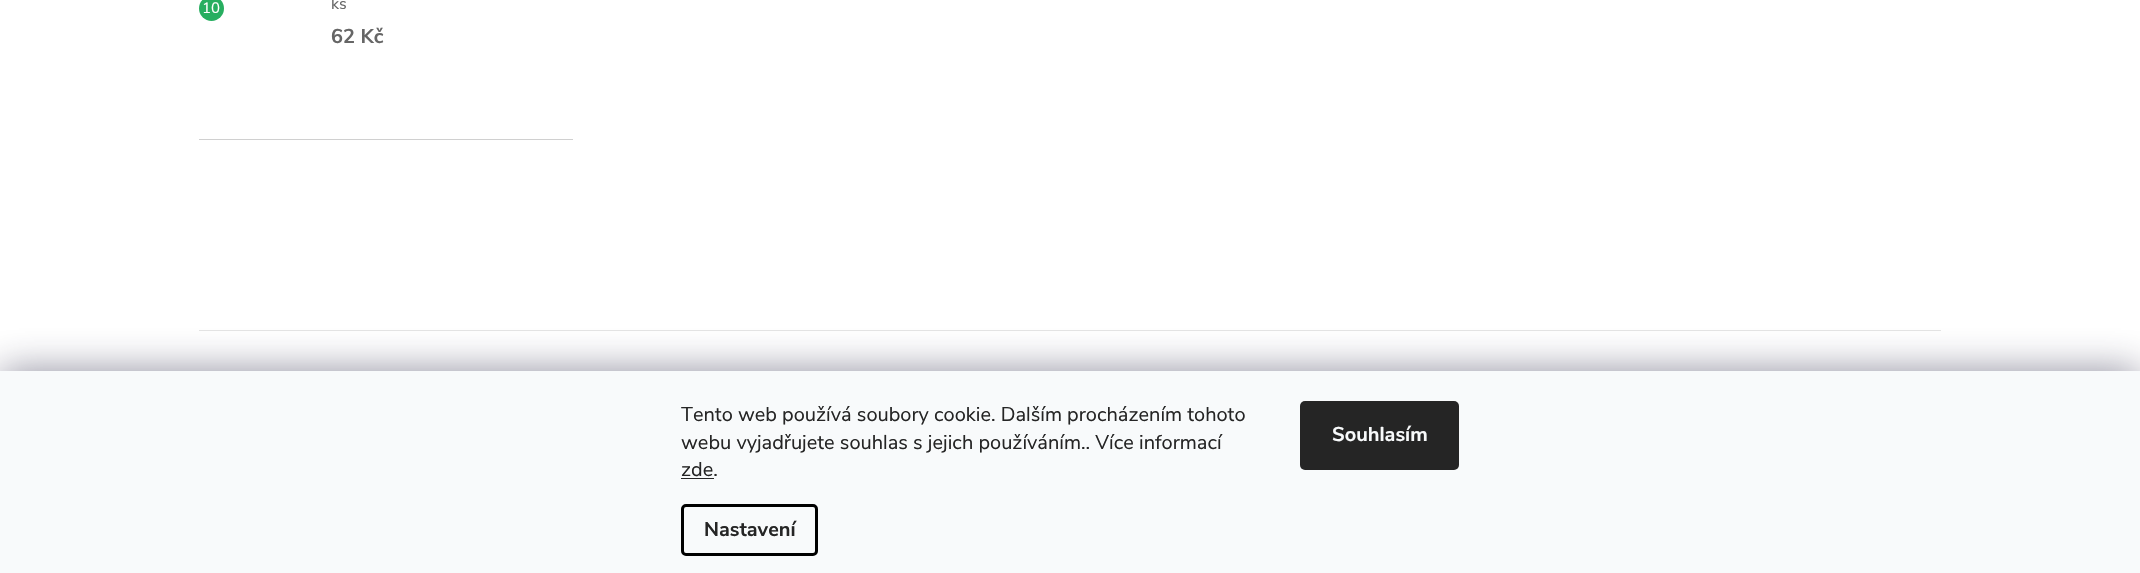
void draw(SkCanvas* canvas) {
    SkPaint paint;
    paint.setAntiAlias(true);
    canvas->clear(0xFFFFFFFF);
    paint.setColor(0xFFD0D0D0);
    canvas->drawRect(SkRect::MakeXYWH(199, 139, 374, 1), paint);
    paint.setColor(0xFF27AE60);
    canvas->drawCircle(211.5f, 8.5f, 12.5f, paint);
    SkFont font1(fontMgr->matchFamilyStyle("Nunito Sans", SkFontStyle::Normal()), 15);
    font1.setSubpixel(true);
    paint.setColor(0xFFFFFFFF);
    canvas->drawString("10", 202, 13, font1, paint);
    SkFont font2(fontMgr->matchFamilyStyle("Nunito Sans", SkFontStyle::Normal()), 16);
    font2.setSubpixel(true);
    paint.setColor(0xFF666666);
    canvas->drawString("ks", 331, 9, font2, paint);
    SkFont font3(fontMgr->matchFamilyStyle("Nunito Sans", SkFontStyle::Bold()), 20);
    font3.setSubpixel(true);
    canvas->drawString("62 Kč", 331, 43, font3, paint);
    paint.setColor(0xFFE4E4E4);
    canvas->drawRect(SkRect::MakeXYWH(199, 330, 1742, 1), paint);
    paint.setColor(0x801B1939);
    paint.setMaskFilter(SkMaskFilter::MakeBlur(kNormal_SkBlurStyle, 19));
    canvas->drawRect(SkRect::MakeXYWH(0, 371, 2140, 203), paint);
    paint.setMaskFilter(nullptr);
    paint.setColor(0xFFF8FAFB);
    canvas->drawRect(SkRect::MakeXYWH(0, 371, 2140, 202), paint);
    SkFont font4(fontMgr->matchFamilyStyle("Nunito Sans", SkFontStyle::Normal()), 20);
    font4.setSubpixel(true);
    paint.setColor(0xFF252525);
    canvas->drawString("Tento web používá soubory cookie. Dalším procházením tohoto", 681, 421, font4, paint);
    canvas->drawString("webu vyjadřujete souhlas s jejich používáním.. Více informací", 681, 449, font4, paint);
    canvas->drawString("zde.", 681, 476, font4, paint);
    canvas->drawRect(SkRect::MakeXYWH(681, 478, 33, 1), paint);
    paint.setStyle(SkPaint::kStroke_Style);
    paint.setStrokeWidth(3);
    paint.setColor(0xFF000000);
    canvas->drawRoundRect(SkRect::MakeXYWH(682.5f, 505.5f, 134, 49), 3.5f, 3.5f, paint);
    paint.setStyle(SkPaint::kFill_Style);
    paint.setColor(0xFF252525);
    canvas->drawString("Nastavení", 704, 536, font3, paint);
    canvas->drawRoundRect(SkRect::MakeXYWH(1300, 401, 159, 69), 5, 5, paint);
    paint.setColor(0xFFF8FAFB);
    canvas->drawString("Souhlasím", 1332, 441, font3, paint);
}
